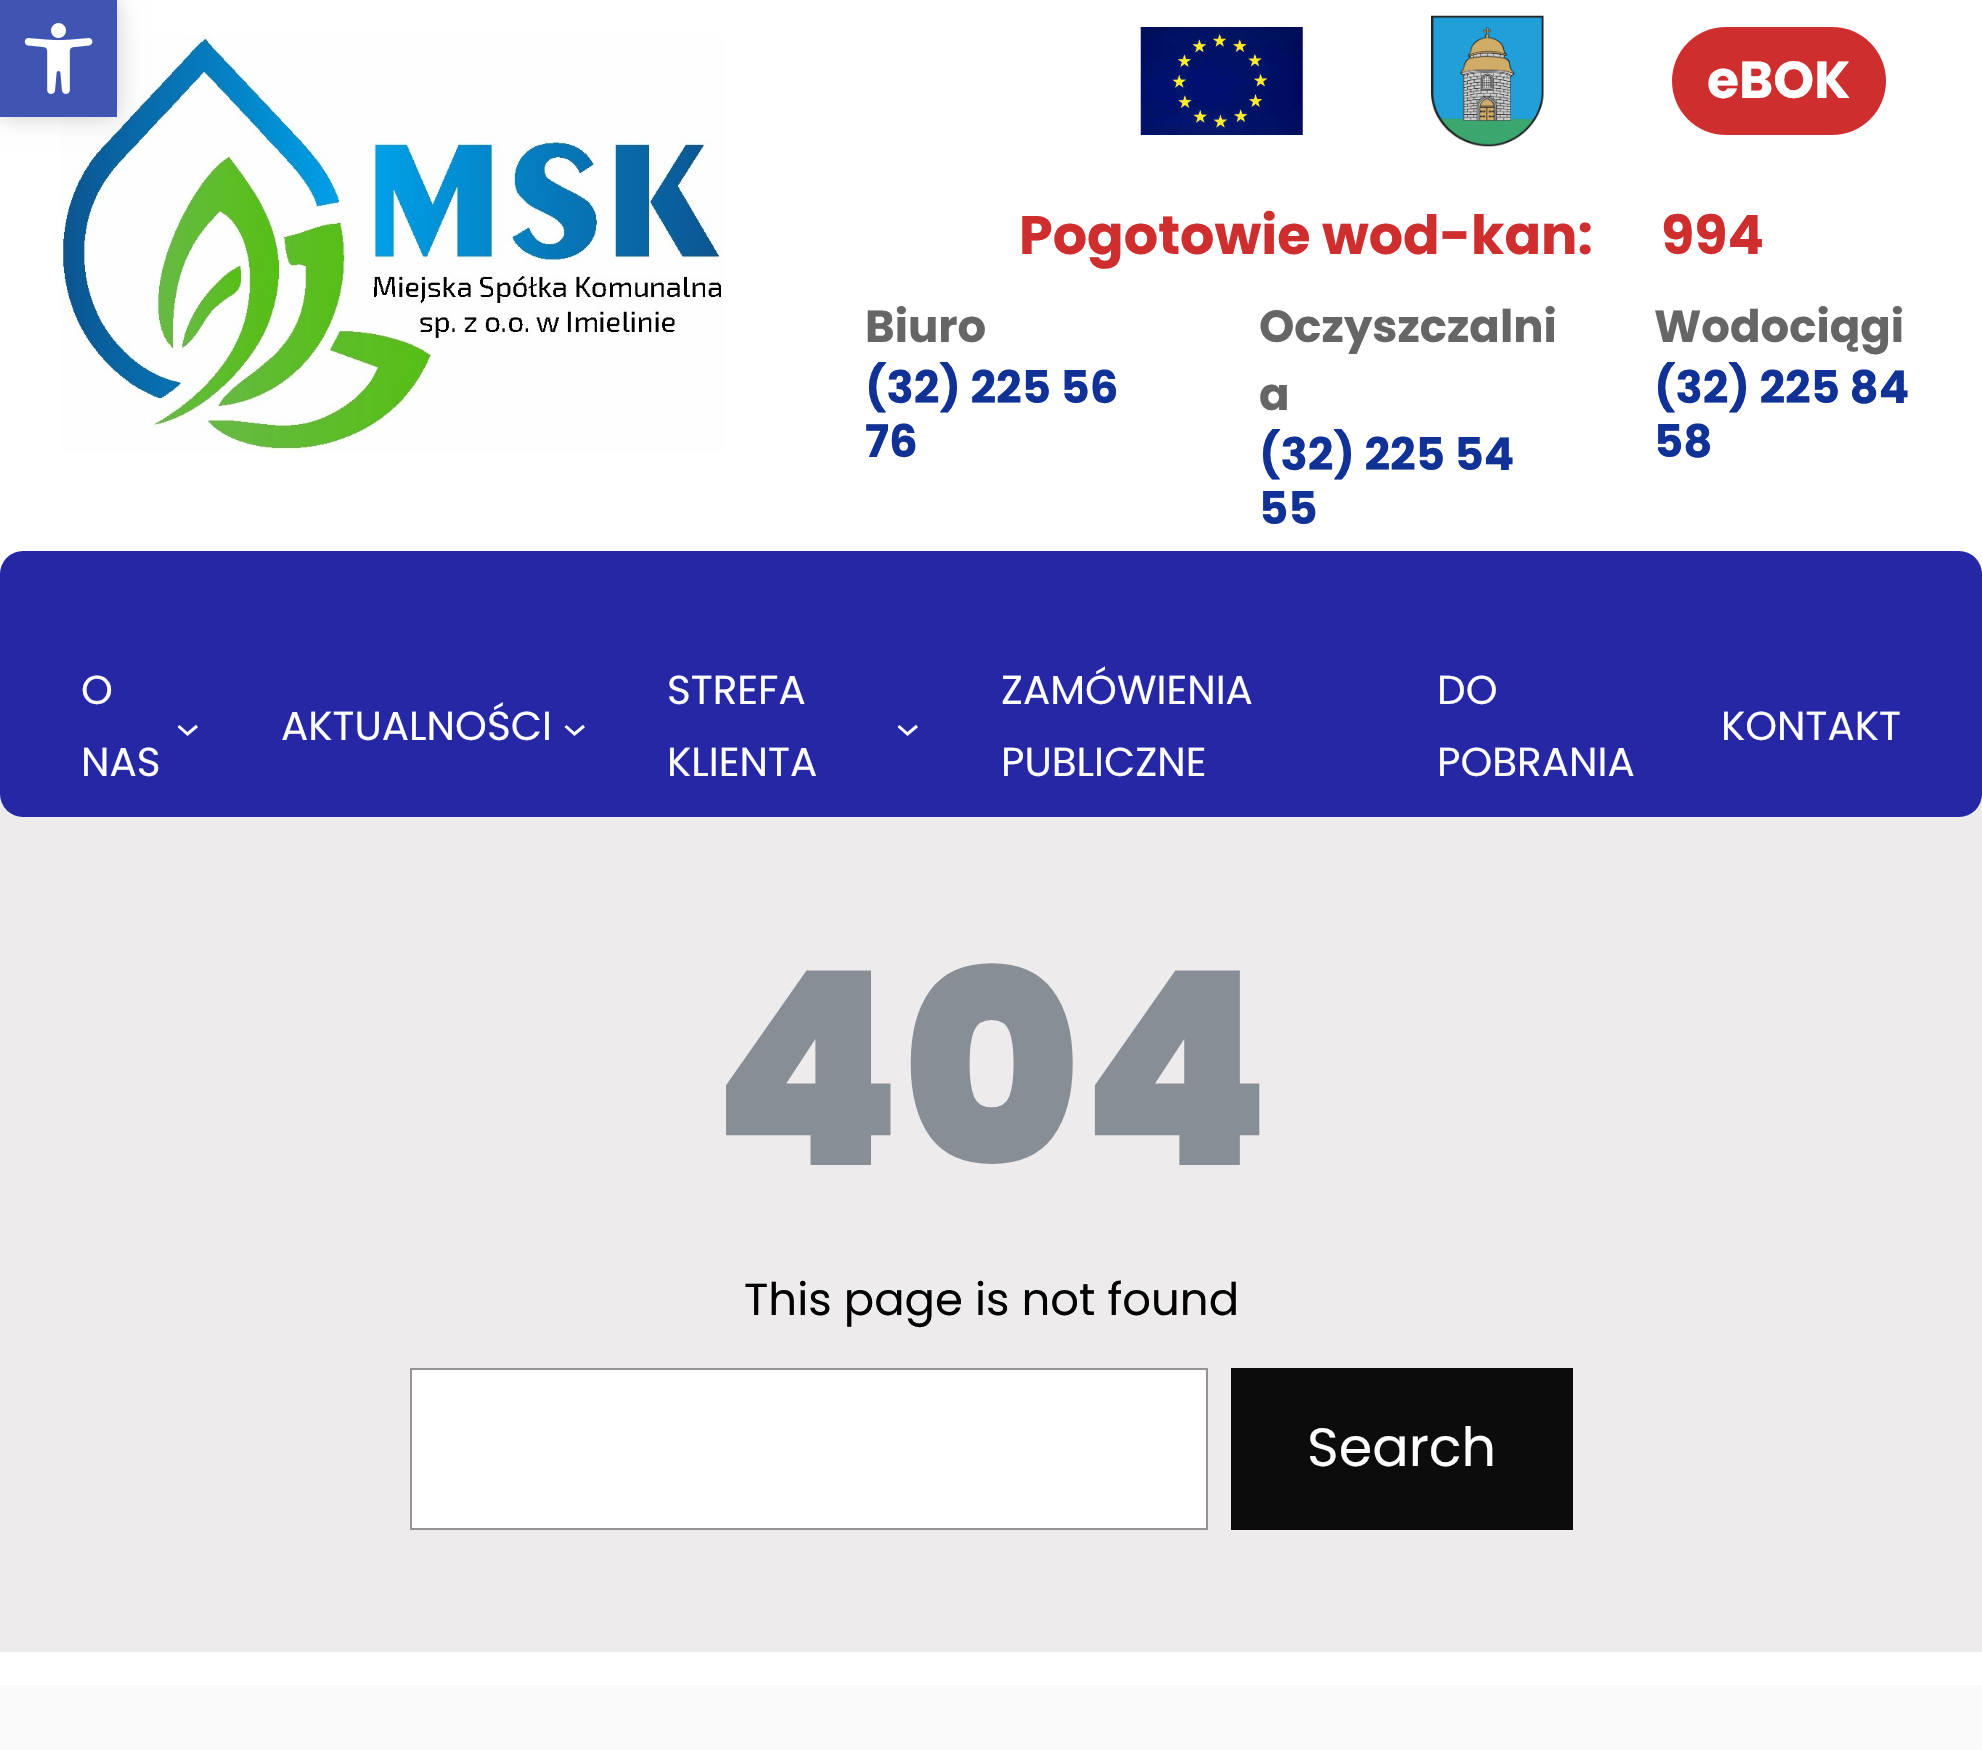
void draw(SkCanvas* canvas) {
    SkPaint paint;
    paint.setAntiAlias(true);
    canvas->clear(0xFFFFFFFF);
    canvas->drawImageRect(SkImages::DeferredFromEncodedData(SkData::MakeFromFileName("img2.png")), SkRect::MakeXYWH(61, 34, 663, 418), SkSamplingOptions());
    paint.setColor(0x33000000);
    paint.setMaskFilter(SkMaskFilter::MakeBlur(kNormal_SkBlurStyle, 11));
    canvas->drawRect(SkRect::MakeXYWH(0, 0, 117, 117), paint);
    paint.setMaskFilter(nullptr);
    paint.setColor(0xFF4054B2);
    canvas->drawRect(SkRect::MakeXYWH(0, 0, 117, 117), paint);
    canvas->drawImageRect(SkImages::DeferredFromEncodedData(SkData::MakeFromFileName("img1.png")), SkRect::MakeXYWH(24, 23, 69, 71), SkSamplingOptions());
    canvas->drawImageRect(SkImages::DeferredFromEncodedData(SkData::MakeFromFileName("img3.png")), SkRect::MakeXYWH(1140, 27, 163, 108), SkSamplingOptions());
    canvas->drawImageRect(SkImages::DeferredFromEncodedData(SkData::MakeFromFileName("img4.png")), SkRect::MakeXYWH(1431, 15, 113, 132), SkSamplingOptions());
    paint.setColor(0xFFCF2E2E);
    canvas->drawRoundRect(SkRect::MakeXYWH(1672, 27, 214, 108), 54, 54, paint);
    SkFont font1(fontMgr->matchFamilyStyle("Poppins", SkFontStyle::Bold()), 52);
    font1.setSubpixel(true);
    paint.setColor(0xFFFFFFFF);
    canvas->drawString("eBOK", 1707, 98, font1, paint);
    SkFont font2(fontMgr->matchFamilyStyle("Poppins", SkFontStyle::Bold()), 54);
    font2.setSubpixel(true);
    paint.setColor(0xFFCF2E2E);
    canvas->drawString("Pogotowie wod-kan:", 1019, 254, font2, paint);
    canvas->drawString("994", 1661, 254, font2, paint);
    SkFont font3(fontMgr->matchFamilyStyle("Poppins", SkFontStyle::Bold()), 45);
    font3.setSubpixel(true);
    paint.setColor(0xFF666666);
    canvas->drawString("Biuro", 865, 342, font3, paint);
    paint.setColor(0xFF103195);
    canvas->drawString("(32) 225 56", 865, 403, font3, paint);
    canvas->drawString("76", 865, 457, font3, paint);
    paint.setColor(0xFF666666);
    canvas->drawString("Oczyszczalni", 1259, 342, font3, paint);
    canvas->drawString("a", 1259, 410, font3, paint);
    paint.setColor(0xFF103195);
    canvas->drawString("(32) 225 54", 1259, 470, font3, paint);
    canvas->drawString("55", 1259, 524, font3, paint);
    paint.setColor(0xFF666666);
    canvas->drawString("Wodociągi", 1654, 342, font3, paint);
    paint.setColor(0xFF103195);
    canvas->drawString("(32) 225 84", 1654, 403, font3, paint);
    canvas->drawString("58", 1654, 457, font3, paint);
    paint.setColor(0xFFEDEBEB);
    canvas->drawRect(SkRect::MakeXYWH(0, 794, 1982, 858), paint);
    paint.setColor(0xFF2527A5);
    canvas->drawRoundRect(SkRect::MakeXYWH(0, 551, 1982, 266), 23, 23, paint);
    SkFont font4(fontMgr->matchFamilyStyle("Poppins", SkFontStyle::Normal()), 40.5f);
    font4.setSubpixel(true);
    paint.setColor(0xFFFFFFFF);
    canvas->drawString("O", 81, 704, font4, paint);
    canvas->drawString("NAS", 81, 776, font4, paint);
    paint.setStyle(SkPaint::kStroke_Style);
    paint.setStrokeWidth(3);
    canvas->drawPath(SkPathBuilder().moveTo(178.5f, 726).lineTo(187.5f, 734).lineTo(197, 726).detach(), paint);
    paint.setStyle(SkPaint::kFill_Style);
    canvas->drawString("AKTUALNOŚCI", 281, 740, font4, paint);
    paint.setStyle(SkPaint::kStroke_Style);
    canvas->drawPath(SkPathBuilder().moveTo(565.5f, 726).lineTo(574.5f, 734).lineTo(584, 726).detach(), paint);
    paint.setStyle(SkPaint::kFill_Style);
    canvas->drawString("STREFA", 667, 704, font4, paint);
    canvas->drawString("KLIENTA", 667, 776, font4, paint);
    paint.setStyle(SkPaint::kStroke_Style);
    canvas->drawPath(SkPathBuilder().moveTo(898.5f, 726).lineTo(907.5f, 734).lineTo(917, 726).detach(), paint);
    paint.setStyle(SkPaint::kFill_Style);
    canvas->drawString("ZAMÓWIENIA", 1001, 704, font4, paint);
    canvas->drawString("PUBLICZNE", 1001, 776, font4, paint);
    canvas->drawString("DO", 1437, 704, font4, paint);
    canvas->drawString("POBRANIA", 1437, 776, font4, paint);
    canvas->drawString("KONTAKT", 1721, 740, font4, paint);
    SkFont font5(fontMgr->matchFamilyStyle("Poppins", SkFontStyle(900, SkFontStyle::kNormal_Width, SkFontStyle::kUpright_Slant)), 270);
    font5.setSubpixel(true);
    paint.setColor(0xFF878E96);
    canvas->drawString("404", 712, 1165, font5, paint);
    SkFont font6(fontMgr->matchFamilyStyle("Poppins", SkFontStyle::Normal()), 45);
    font6.setSubpixel(true);
    paint.setColor(0xFF000000);
    canvas->drawString("This page is not found", 744, 1315, font6, paint);
    paint.setColor(0xFFFFFFFF);
    canvas->drawRect(SkRect::MakeXYWH(411, 1369, 796, 160), paint);
    paint.setStyle(SkPaint::kStroke_Style);
    paint.setStrokeWidth(2);
    paint.setColor(0xFF949494);
    canvas->drawRect(SkRect::MakeXYWH(411, 1369, 796, 160), paint);
    paint.setStyle(SkPaint::kFill_Style);
    paint.setColor(0xFF0D0C0C);
    canvas->drawRect(SkRect::MakeXYWH(1231, 1368, 342, 162), paint);
    SkFont font7(fontMgr->matchFamilyStyle("Poppins", SkFontStyle::Normal()), 54);
    font7.setSubpixel(true);
    paint.setColor(0xFFFFFFFF);
    canvas->drawString("Search", 1307, 1466, font7, paint);
    paint.setColor(0xFFFAFAFA);
    canvas->drawRect(SkRect::MakeXYWH(0, 1685, 1982, 65), paint);
}
